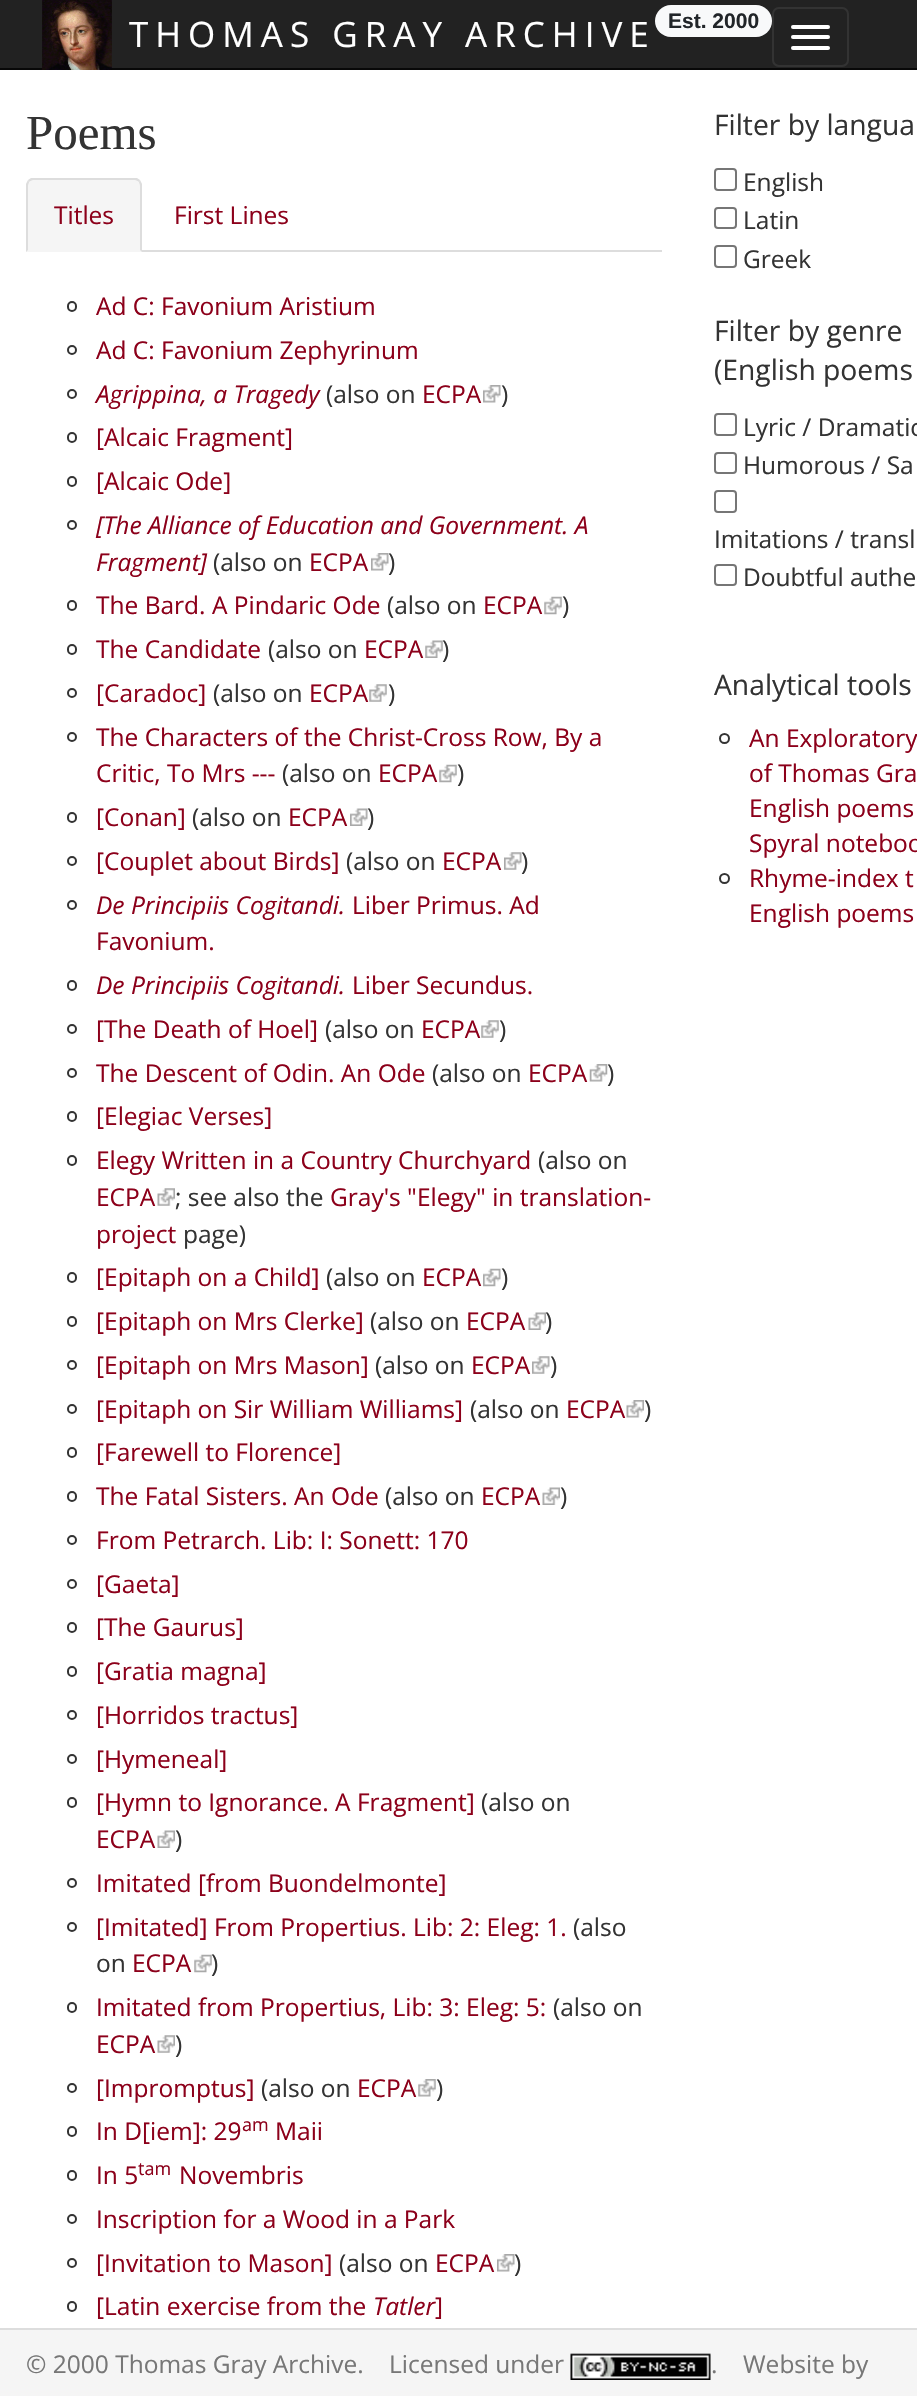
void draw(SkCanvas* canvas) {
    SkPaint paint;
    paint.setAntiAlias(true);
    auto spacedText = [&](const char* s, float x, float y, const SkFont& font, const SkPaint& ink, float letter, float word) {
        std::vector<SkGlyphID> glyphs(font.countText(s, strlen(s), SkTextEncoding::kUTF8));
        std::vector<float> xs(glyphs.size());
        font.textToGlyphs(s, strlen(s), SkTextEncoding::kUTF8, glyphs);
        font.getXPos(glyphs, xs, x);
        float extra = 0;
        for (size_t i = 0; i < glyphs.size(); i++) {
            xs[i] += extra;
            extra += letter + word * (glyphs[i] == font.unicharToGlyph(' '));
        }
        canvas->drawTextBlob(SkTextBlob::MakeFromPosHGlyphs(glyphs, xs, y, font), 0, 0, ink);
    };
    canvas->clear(0xFFFFFFFF);
    paint.setColor(0xFF222222);
    canvas->drawRect(SkRect::MakeXYWH(0, 0, 917, 68), paint);
    paint.setColor(0xFF080808);
    canvas->drawRect(SkRect::MakeXYWH(0, 68, 917, 2), paint);
    canvas->drawImageRect(SkImages::DeferredFromEncodedData(SkData::MakeFromFileName("img1.png")), SkRect::MakeXYWH(42, 0, 70, 70), SkSamplingOptions());
    SkFont font1(fontMgr->matchFamilyStyle("Open Sans", SkFontStyle::Normal()), 35);
    font1.setSubpixel(true);
    paint.setColor(0xFFFFFFFF);
    spacedText("THOMAS GRAY ARCHIVE", 129, 47, font1, paint, 7, 0);
    paint.setColor(0xFFF8F9FA);
    canvas->drawRoundRect(SkRect::MakeXYWH(655, 5, 117, 32), 16, 16, paint);
    SkFont font2(fontMgr->matchFamilyStyle("Liberation Sans", SkFontStyle::Bold()), 21);
    font2.setSubpixel(true);
    paint.setColor(0xFF212529);
    canvas->drawString("Est. 2000", 668, 28, font2, paint);
    paint.setStyle(SkPaint::kStroke_Style);
    paint.setStrokeWidth(2);
    paint.setColor(0xFF333333);
    canvas->drawRoundRect(SkRect::MakeXYWH(773, 8, 75, 58), 6, 6, paint);
    paint.setStyle(SkPaint::kFill_Style);
    paint.setColor(0xFFFFFFFF);
    canvas->drawRoundRect(SkRect::MakeXYWH(791, 25, 39, 4), 2, 2, paint);
    canvas->drawRoundRect(SkRect::MakeXYWH(791, 35, 39, 4), 2, 2, paint);
    canvas->drawRoundRect(SkRect::MakeXYWH(791, 46, 39, 4), 2, 2, paint);
    SkFont font3(fontMgr->matchFamilyStyle("Liberation Serif", SkFontStyle::Normal()), 49);
    font3.setSubpixel(true);
    paint.setColor(0xFF333333);
    canvas->drawString("Poems", 26, 149, font3, paint);
    paint.setColor(0xFFDDDDDD);
    canvas->drawRect(SkRect::MakeXYWH(142, 250, 520, 2), paint);
    paint.setColor(0xFFF5F5F5);
    canvas->drawPath(SkPathBuilder().moveTo(33, 179).lineTo(135, 179).cubicTo(139, 179, 142, 182, 142, 186).lineTo(142, 252).lineTo(26, 252).lineTo(26, 186).cubicTo(26, 182, 29, 179, 33, 179).close().detach(), paint);
    paint.setColor(0xFFDDDDDD);
    canvas->drawPath(SkPathBuilder().moveTo(33, 180).cubicTo(32, 180, 30, 181, 29, 182).lineTo(28, 180).lineTo(31, 178).lineTo(137, 178).lineTo(140, 180).lineTo(139, 182).cubicTo(138, 181, 136, 180, 135, 180).close().detach(), paint);
    canvas->drawPath(SkPathBuilder().moveTo(142, 184).lineTo(142, 252).lineTo(140, 250).lineTo(140, 186).cubicTo(140, 184, 139, 183, 139, 182).lineTo(140, 180).close().detach(), paint);
    canvas->drawPath(SkPathBuilder().moveTo(26, 252).lineTo(26, 184).lineTo(28, 180).lineTo(29, 182).cubicTo(29, 183, 28, 184, 28, 186).lineTo(28, 250).close().detach(), paint);
    SkFont font4(fontMgr->matchFamilyStyle("Open Sans", SkFontStyle::Normal()), 24.5f);
    font4.setSubpixel(true);
    paint.setColor(0xFF8C001A);
    canvas->drawString("Titles", 54, 224, font4, paint);
    canvas->drawString("First Lines", 174, 224, font4, paint);
    paint.setStyle(SkPaint::kStroke_Style);
    paint.setColor(0xFF333333);
    canvas->drawRoundRect(SkRect::MakeXYWH(68, 302, 8, 9), 4, 4, paint);
    paint.setStyle(SkPaint::kFill_Style);
    paint.setColor(0xFF8C001A);
    canvas->drawString("Ad C: Favonium Aristium", 96, 315, font4, paint);
    paint.setStyle(SkPaint::kStroke_Style);
    paint.setColor(0xFF333333);
    canvas->drawCircle(72, 350, 4, paint);
    paint.setStyle(SkPaint::kFill_Style);
    paint.setColor(0xFF8C001A);
    canvas->drawString("Ad C: Favonium Zephyrinum", 96, 359, font4, paint);
    paint.setStyle(SkPaint::kStroke_Style);
    paint.setColor(0xFF333333);
    canvas->drawCircle(72, 394, 4, paint);
    SkFont font5(fontMgr->matchFamilyStyle("Open Sans", SkFontStyle::Italic()), 24.5f);
    font5.setSubpixel(true);
    paint.setStyle(SkPaint::kFill_Style);
    paint.setColor(0xFF8C001A);
    canvas->drawString("Agrippina, a Tragedy", 96, 403, font5, paint);
    paint.setColor(0xFF333333);
    canvas->drawString("(also on", 326, 403, font4, paint);
    paint.setColor(0xFF8C001A);
    canvas->drawString("ECPA", 422, 403, font4, paint);
    canvas->drawImageRect(SkImages::DeferredFromEncodedData(SkData::MakeFromFileName("img2.png")), SkRect::MakeXYWH(483, 385, 18, 18), SkSamplingOptions());
    paint.setColor(0xFF333333);
    canvas->drawString(")", 501, 403, font4, paint);
    paint.setStyle(SkPaint::kStroke_Style);
    canvas->drawRoundRect(SkRect::MakeXYWH(68, 433, 8, 9), 4, 4, paint);
    paint.setStyle(SkPaint::kFill_Style);
    paint.setColor(0xFF8C001A);
    canvas->drawString("[Alcaic Fragment]", 96, 446, font4, paint);
    paint.setStyle(SkPaint::kStroke_Style);
    paint.setColor(0xFF333333);
    canvas->drawRoundRect(SkRect::MakeXYWH(68, 477, 8, 9), 4, 4, paint);
    paint.setStyle(SkPaint::kFill_Style);
    paint.setColor(0xFF8C001A);
    canvas->drawString("[Alcaic Ode]", 96, 490, font4, paint);
    paint.setStyle(SkPaint::kStroke_Style);
    paint.setColor(0xFF333333);
    canvas->drawCircle(72, 525, 4, paint);
    paint.setStyle(SkPaint::kFill_Style);
    paint.setColor(0xFF8C001A);
    canvas->drawString("[The Alliance of Education and Government. A", 96, 534, font5, paint);
    canvas->drawString("Fragment]", 96, 571, font5, paint);
    paint.setColor(0xFF333333);
    canvas->drawString("(also on", 213, 571, font4, paint);
    paint.setColor(0xFF8C001A);
    canvas->drawString("ECPA", 309, 571, font4, paint);
    canvas->drawImageRect(SkImages::DeferredFromEncodedData(SkData::MakeFromFileName("img3.png")), SkRect::MakeXYWH(371, 553, 18, 18), SkSamplingOptions());
    paint.setColor(0xFF333333);
    canvas->drawString(")", 388, 571, font4, paint);
    paint.setStyle(SkPaint::kStroke_Style);
    canvas->drawRoundRect(SkRect::MakeXYWH(68, 601, 8, 9), 4, 4, paint);
    paint.setStyle(SkPaint::kFill_Style);
    paint.setColor(0xFF8C001A);
    canvas->drawString("The Bard. A Pindaric Ode", 96, 614, font4, paint);
    paint.setColor(0xFF333333);
    canvas->drawString("(also on", 387, 614, font4, paint);
    paint.setColor(0xFF8C001A);
    canvas->drawString("ECPA", 483, 614, font4, paint);
    canvas->drawImageRect(SkImages::DeferredFromEncodedData(SkData::MakeFromFileName("img4.png")), SkRect::MakeXYWH(544, 596, 18, 19), SkSamplingOptions());
    paint.setColor(0xFF333333);
    canvas->drawString(")", 562, 614, font4, paint);
    paint.setStyle(SkPaint::kStroke_Style);
    canvas->drawRoundRect(SkRect::MakeXYWH(68, 645, 8, 9), 4, 4, paint);
    paint.setStyle(SkPaint::kFill_Style);
    paint.setColor(0xFF8C001A);
    canvas->drawString("The Candidate", 96, 658, font4, paint);
    paint.setColor(0xFF333333);
    canvas->drawString("(also on", 268, 658, font4, paint);
    paint.setColor(0xFF8C001A);
    canvas->drawString("ECPA", 364, 658, font4, paint);
    canvas->drawImageRect(SkImages::DeferredFromEncodedData(SkData::MakeFromFileName("img5.png")), SkRect::MakeXYWH(425, 640, 18, 18), SkSamplingOptions());
    paint.setColor(0xFF333333);
    canvas->drawString(")", 442, 658, font4, paint);
    paint.setStyle(SkPaint::kStroke_Style);
    canvas->drawCircle(72, 693, 4, paint);
    paint.setStyle(SkPaint::kFill_Style);
    paint.setColor(0xFF8C001A);
    canvas->drawString("[Caradoc]", 96, 702, font4, paint);
    paint.setColor(0xFF333333);
    canvas->drawString("(also on", 213, 702, font4, paint);
    paint.setColor(0xFF8C001A);
    canvas->drawString("ECPA", 309, 702, font4, paint);
    canvas->drawImageRect(SkImages::DeferredFromEncodedData(SkData::MakeFromFileName("img6.png")), SkRect::MakeXYWH(369, 684, 18, 18), SkSamplingOptions());
    paint.setColor(0xFF333333);
    canvas->drawString(")", 388, 702, font4, paint);
    paint.setStyle(SkPaint::kStroke_Style);
    canvas->drawCircle(72, 737, 4, paint);
    paint.setStyle(SkPaint::kFill_Style);
    paint.setColor(0xFF8C001A);
    canvas->drawString("The Characters of the Christ-Cross Row, By a", 96, 746, font4, paint);
    canvas->drawString("Critic, To Mrs ---", 96, 782, font4, paint);
    paint.setColor(0xFF333333);
    canvas->drawString("(also on", 282, 782, font4, paint);
    paint.setColor(0xFF8C001A);
    canvas->drawString("ECPA", 378, 782, font4, paint);
    canvas->drawImageRect(SkImages::DeferredFromEncodedData(SkData::MakeFromFileName("img7.png")), SkRect::MakeXYWH(439, 764, 18, 19), SkSamplingOptions());
    paint.setColor(0xFF333333);
    canvas->drawString(")", 457, 782, font4, paint);
    paint.setStyle(SkPaint::kStroke_Style);
    canvas->drawRoundRect(SkRect::MakeXYWH(68, 813, 8, 9), 4, 4, paint);
    paint.setStyle(SkPaint::kFill_Style);
    paint.setColor(0xFF8C001A);
    canvas->drawString("[Conan]", 96, 826, font4, paint);
    paint.setColor(0xFF333333);
    canvas->drawString("(also on", 192, 826, font4, paint);
    paint.setColor(0xFF8C001A);
    canvas->drawString("ECPA", 288, 826, font4, paint);
    canvas->drawImageRect(SkImages::DeferredFromEncodedData(SkData::MakeFromFileName("img8.png")), SkRect::MakeXYWH(350, 808, 18, 18), SkSamplingOptions());
    paint.setColor(0xFF333333);
    canvas->drawString(")", 367, 826, font4, paint);
    paint.setStyle(SkPaint::kStroke_Style);
    canvas->drawCircle(72, 861, 4, paint);
    paint.setStyle(SkPaint::kFill_Style);
    paint.setColor(0xFF8C001A);
    canvas->drawString("[Couplet about Birds]", 96, 870, font4, paint);
    paint.setColor(0xFF333333);
    canvas->drawString("(also on", 346, 870, font4, paint);
    paint.setColor(0xFF8C001A);
    canvas->drawString("ECPA", 442, 870, font4, paint);
    canvas->drawImageRect(SkImages::DeferredFromEncodedData(SkData::MakeFromFileName("img9.png")), SkRect::MakeXYWH(504, 852, 18, 18), SkSamplingOptions());
    paint.setColor(0xFF333333);
    canvas->drawString(")", 521, 870, font4, paint);
    paint.setStyle(SkPaint::kStroke_Style);
    canvas->drawCircle(72, 905, 4, paint);
    paint.setStyle(SkPaint::kFill_Style);
    paint.setColor(0xFF8C001A);
    canvas->drawString("De Principiis Cogitandi.", 96, 914, font5, paint);
    canvas->drawString("Liber Primus. Ad", 352, 914, font4, paint);
    canvas->drawString("Favonium.", 96, 950, font4, paint);
    paint.setStyle(SkPaint::kStroke_Style);
    paint.setColor(0xFF333333);
    canvas->drawRoundRect(SkRect::MakeXYWH(68, 981, 8, 9), 4, 4, paint);
    paint.setStyle(SkPaint::kFill_Style);
    paint.setColor(0xFF8C001A);
    canvas->drawString("De Principiis Cogitandi.", 96, 994, font5, paint);
    canvas->drawString("Liber Secundus.", 352, 994, font4, paint);
    paint.setStyle(SkPaint::kStroke_Style);
    paint.setColor(0xFF333333);
    canvas->drawCircle(72, 1029, 4, paint);
    paint.setStyle(SkPaint::kFill_Style);
    paint.setColor(0xFF8C001A);
    canvas->drawString("[The Death of Hoel]", 96, 1038, font4, paint);
    paint.setColor(0xFF333333);
    canvas->drawString("(also on", 325, 1038, font4, paint);
    paint.setColor(0xFF8C001A);
    canvas->drawString("ECPA", 421, 1038, font4, paint);
    canvas->drawImageRect(SkImages::DeferredFromEncodedData(SkData::MakeFromFileName("img6.png")), SkRect::MakeXYWH(481, 1020, 18, 18), SkSamplingOptions());
    paint.setColor(0xFF333333);
    canvas->drawString(")", 499, 1038, font4, paint);
    paint.setStyle(SkPaint::kStroke_Style);
    canvas->drawCircle(72, 1073, 4, paint);
    paint.setStyle(SkPaint::kFill_Style);
    paint.setColor(0xFF8C001A);
    canvas->drawString("The Descent of Odin. An Ode", 96, 1082, font4, paint);
    paint.setColor(0xFF333333);
    canvas->drawString("(also on", 432, 1082, font4, paint);
    paint.setColor(0xFF8C001A);
    canvas->drawString("ECPA", 528, 1082, font4, paint);
    canvas->drawImageRect(SkImages::DeferredFromEncodedData(SkData::MakeFromFileName("img10.png")), SkRect::MakeXYWH(589, 1064, 19, 18), SkSamplingOptions());
    paint.setColor(0xFF333333);
    canvas->drawString(")", 607, 1082, font4, paint);
    paint.setStyle(SkPaint::kStroke_Style);
    canvas->drawRoundRect(SkRect::MakeXYWH(68, 1112, 8, 9), 4, 4, paint);
    paint.setStyle(SkPaint::kFill_Style);
    paint.setColor(0xFF8C001A);
    canvas->drawString("[Elegiac Verses]", 96, 1125, font4, paint);
    paint.setStyle(SkPaint::kStroke_Style);
    paint.setColor(0xFF333333);
    canvas->drawRoundRect(SkRect::MakeXYWH(68, 1156, 8, 9), 4, 4, paint);
    paint.setStyle(SkPaint::kFill_Style);
    paint.setColor(0xFF8C001A);
    canvas->drawString("Elegy Written in a Country Churchyard", 96, 1169, font4, paint);
    paint.setColor(0xFF333333);
    canvas->drawString("(also on", 538, 1169, font4, paint);
    paint.setColor(0xFF8C001A);
    canvas->drawString("ECPA", 96, 1206, font4, paint);
    canvas->drawImageRect(SkImages::DeferredFromEncodedData(SkData::MakeFromFileName("img11.png")), SkRect::MakeXYWH(157, 1188, 18, 18), SkSamplingOptions());
    paint.setColor(0xFF333333);
    canvas->drawString("; see also the", 175, 1206, font4, paint);
    paint.setColor(0xFF8C001A);
    canvas->drawString("Gray's \"Elegy\" in translation-", 330, 1206, font4, paint);
    canvas->drawString("project", 96, 1243, font4, paint);
    paint.setColor(0xFF333333);
    canvas->drawString("page)", 183, 1243, font4, paint);
    paint.setStyle(SkPaint::kStroke_Style);
    canvas->drawRoundRect(SkRect::MakeXYWH(68, 1273, 8, 9), 4, 4, paint);
    paint.setStyle(SkPaint::kFill_Style);
    paint.setColor(0xFF8C001A);
    canvas->drawString("[Epitaph on a Child]", 96, 1286, font4, paint);
    paint.setColor(0xFF333333);
    canvas->drawString("(also on", 326, 1286, font4, paint);
    paint.setColor(0xFF8C001A);
    canvas->drawString("ECPA", 422, 1286, font4, paint);
    canvas->drawImageRect(SkImages::DeferredFromEncodedData(SkData::MakeFromFileName("img12.png")), SkRect::MakeXYWH(483, 1268, 18, 19), SkSamplingOptions());
    paint.setColor(0xFF333333);
    canvas->drawString(")", 501, 1286, font4, paint);
    paint.setStyle(SkPaint::kStroke_Style);
    canvas->drawRoundRect(SkRect::MakeXYWH(68, 1317, 8, 9), 4, 4, paint);
    paint.setStyle(SkPaint::kFill_Style);
    paint.setColor(0xFF8C001A);
    canvas->drawString("[Epitaph on Mrs Clerke]", 96, 1330, font4, paint);
    paint.setColor(0xFF333333);
    canvas->drawString("(also on", 370, 1330, font4, paint);
    paint.setColor(0xFF8C001A);
    canvas->drawString("ECPA", 466, 1330, font4, paint);
    canvas->drawImageRect(SkImages::DeferredFromEncodedData(SkData::MakeFromFileName("img13.png")), SkRect::MakeXYWH(528, 1312, 18, 18), SkSamplingOptions());
    paint.setColor(0xFF333333);
    canvas->drawString(")", 545, 1330, font4, paint);
    paint.setStyle(SkPaint::kStroke_Style);
    canvas->drawCircle(72, 1365, 4, paint);
    paint.setStyle(SkPaint::kFill_Style);
    paint.setColor(0xFF8C001A);
    canvas->drawString("[Epitaph on Mrs Mason]", 96, 1374, font4, paint);
    paint.setColor(0xFF333333);
    canvas->drawString("(also on", 375, 1374, font4, paint);
    paint.setColor(0xFF8C001A);
    canvas->drawString("ECPA", 471, 1374, font4, paint);
    canvas->drawImageRect(SkImages::DeferredFromEncodedData(SkData::MakeFromFileName("img14.png")), SkRect::MakeXYWH(532, 1356, 18, 18), SkSamplingOptions());
    paint.setColor(0xFF333333);
    canvas->drawString(")", 550, 1374, font4, paint);
    paint.setStyle(SkPaint::kStroke_Style);
    canvas->drawCircle(72, 1409, 4, paint);
    paint.setStyle(SkPaint::kFill_Style);
    paint.setColor(0xFF8C001A);
    canvas->drawString("[Epitaph on Sir William Williams]", 96, 1418, font4, paint);
    paint.setColor(0xFF333333);
    canvas->drawString("(also on", 470, 1418, font4, paint);
    paint.setColor(0xFF8C001A);
    canvas->drawString("ECPA", 566, 1418, font4, paint);
    canvas->drawImageRect(SkImages::DeferredFromEncodedData(SkData::MakeFromFileName("img15.png")), SkRect::MakeXYWH(626, 1400, 18, 18), SkSamplingOptions());
    paint.setColor(0xFF333333);
    canvas->drawString(")", 644, 1418, font4, paint);
    paint.setStyle(SkPaint::kStroke_Style);
    canvas->drawRoundRect(SkRect::MakeXYWH(68, 1448, 8, 9), 4, 4, paint);
    paint.setStyle(SkPaint::kFill_Style);
    paint.setColor(0xFF8C001A);
    canvas->drawString("[Farewell to Florence]", 96, 1461, font4, paint);
    paint.setStyle(SkPaint::kStroke_Style);
    paint.setColor(0xFF333333);
    canvas->drawRoundRect(SkRect::MakeXYWH(68, 1492, 8, 9), 4, 4, paint);
    paint.setStyle(SkPaint::kFill_Style);
    paint.setColor(0xFF8C001A);
    canvas->drawString("The Fatal Sisters. An Ode", 96, 1505, font4, paint);
    paint.setColor(0xFF333333);
    canvas->drawString("(also on", 385, 1505, font4, paint);
    paint.setColor(0xFF8C001A);
    canvas->drawString("ECPA", 481, 1505, font4, paint);
    canvas->drawImageRect(SkImages::DeferredFromEncodedData(SkData::MakeFromFileName("img16.png")), SkRect::MakeXYWH(542, 1487, 18, 18), SkSamplingOptions());
    paint.setColor(0xFF333333);
    canvas->drawString(")", 560, 1505, font4, paint);
    paint.setStyle(SkPaint::kStroke_Style);
    canvas->drawCircle(72, 1540, 4, paint);
    paint.setStyle(SkPaint::kFill_Style);
    paint.setColor(0xFF8C001A);
    canvas->drawString("From Petrarch. Lib: I: Sonett: 170", 96, 1549, font4, paint);
    paint.setStyle(SkPaint::kStroke_Style);
    paint.setColor(0xFF333333);
    canvas->drawCircle(72, 1584, 4, paint);
    paint.setStyle(SkPaint::kFill_Style);
    paint.setColor(0xFF8C001A);
    canvas->drawString("[Gaeta]", 96, 1593, font4, paint);
    paint.setStyle(SkPaint::kStroke_Style);
    paint.setColor(0xFF333333);
    canvas->drawRoundRect(SkRect::MakeXYWH(68, 1623, 8, 9), 4, 4, paint);
    paint.setStyle(SkPaint::kFill_Style);
    paint.setColor(0xFF8C001A);
    canvas->drawString("[The Gaurus]", 96, 1636, font4, paint);
    paint.setStyle(SkPaint::kStroke_Style);
    paint.setColor(0xFF333333);
    canvas->drawRoundRect(SkRect::MakeXYWH(68, 1667, 8, 9), 4, 4, paint);
    paint.setStyle(SkPaint::kFill_Style);
    paint.setColor(0xFF8C001A);
    canvas->drawString("[Gratia magna]", 96, 1680, font4, paint);
    paint.setStyle(SkPaint::kStroke_Style);
    paint.setColor(0xFF333333);
    canvas->drawCircle(72, 1715, 4, paint);
    paint.setStyle(SkPaint::kFill_Style);
    paint.setColor(0xFF8C001A);
    canvas->drawString("[Horridos tractus]", 96, 1724, font4, paint);
    paint.setStyle(SkPaint::kStroke_Style);
    paint.setColor(0xFF333333);
    canvas->drawCircle(72, 1759, 4, paint);
    paint.setStyle(SkPaint::kFill_Style);
    paint.setColor(0xFF8C001A);
    canvas->drawString("[Hymeneal]", 96, 1768, font4, paint);
    paint.setStyle(SkPaint::kStroke_Style);
    paint.setColor(0xFF333333);
    canvas->drawRoundRect(SkRect::MakeXYWH(68, 1798, 8, 9), 4, 4, paint);
    paint.setStyle(SkPaint::kFill_Style);
    paint.setColor(0xFF8C001A);
    canvas->drawString("[Hymn to Ignorance. A Fragment]", 96, 1811, font4, paint);
    paint.setColor(0xFF333333);
    canvas->drawString("(also on", 481, 1811, font4, paint);
    paint.setColor(0xFF8C001A);
    canvas->drawString("ECPA", 96, 1848, font4, paint);
    canvas->drawImageRect(SkImages::DeferredFromEncodedData(SkData::MakeFromFileName("img17.png")), SkRect::MakeXYWH(157, 1830, 18, 18), SkSamplingOptions());
    paint.setColor(0xFF333333);
    canvas->drawString(")", 175, 1848, font4, paint);
    paint.setStyle(SkPaint::kStroke_Style);
    canvas->drawCircle(72, 1883, 4, paint);
    paint.setStyle(SkPaint::kFill_Style);
    paint.setColor(0xFF8C001A);
    canvas->drawString("Imitated [from Buondelmonte]", 96, 1892, font4, paint);
    paint.setStyle(SkPaint::kStroke_Style);
    paint.setColor(0xFF333333);
    canvas->drawCircle(72, 1927, 4, paint);
    paint.setStyle(SkPaint::kFill_Style);
    paint.setColor(0xFF8C001A);
    canvas->drawString("[Imitated] From Propertius. Lib: 2: Eleg: 1.", 96, 1936, font4, paint);
    paint.setColor(0xFF333333);
    canvas->drawString("(also", 573, 1936, font4, paint);
    canvas->drawString("on", 96, 1972, font4, paint);
    paint.setColor(0xFF8C001A);
    canvas->drawString("ECPA", 132, 1972, font4, paint);
    canvas->drawImageRect(SkImages::DeferredFromEncodedData(SkData::MakeFromFileName("img7.png")), SkRect::MakeXYWH(194, 1954, 18, 19), SkSamplingOptions());
    paint.setColor(0xFF333333);
    canvas->drawString(")", 211, 1972, font4, paint);
    paint.setStyle(SkPaint::kStroke_Style);
    canvas->drawRoundRect(SkRect::MakeXYWH(68, 2003, 8, 9), 4, 4, paint);
    paint.setStyle(SkPaint::kFill_Style);
    paint.setColor(0xFF8C001A);
    canvas->drawString("Imitated from Propertius, Lib: 3: Eleg: 5:", 96, 2016, font4, paint);
    paint.setColor(0xFF333333);
    canvas->drawString("(also on", 553, 2016, font4, paint);
    paint.setColor(0xFF8C001A);
    canvas->drawString("ECPA", 96, 2053, font4, paint);
    canvas->drawImageRect(SkImages::DeferredFromEncodedData(SkData::MakeFromFileName("img11.png")), SkRect::MakeXYWH(157, 2035, 18, 18), SkSamplingOptions());
    paint.setColor(0xFF333333);
    canvas->drawString(")", 175, 2053, font4, paint);
    paint.setStyle(SkPaint::kStroke_Style);
    canvas->drawCircle(72, 2088, 4, paint);
    paint.setStyle(SkPaint::kFill_Style);
    paint.setColor(0xFF8C001A);
    canvas->drawString("[Impromptus]", 96, 2097, font4, paint);
    paint.setColor(0xFF333333);
    canvas->drawString("(also on", 261, 2097, font4, paint);
    paint.setColor(0xFF8C001A);
    canvas->drawString("ECPA", 357, 2097, font4, paint);
    canvas->drawImageRect(SkImages::DeferredFromEncodedData(SkData::MakeFromFileName("img18.png")), SkRect::MakeXYWH(418, 2079, 18, 18), SkSamplingOptions());
    paint.setColor(0xFF333333);
    canvas->drawString(")", 436, 2097, font4, paint);
    paint.setStyle(SkPaint::kStroke_Style);
    canvas->drawRoundRect(SkRect::MakeXYWH(68, 2127, 8, 9), 4, 4, paint);
    paint.setStyle(SkPaint::kFill_Style);
    paint.setColor(0xFF8C001A);
    canvas->drawString("In D[iem]: 29", 96, 2140, font4, paint);
    SkFont font6(fontMgr->matchFamilyStyle("Open Sans", SkFontStyle::Normal()), 18);
    font6.setSubpixel(true);
    canvas->drawString("am", 242, 2131, font6, paint);
    canvas->drawString("Maii", 275, 2140, font4, paint);
    paint.setStyle(SkPaint::kStroke_Style);
    paint.setColor(0xFF333333);
    canvas->drawRoundRect(SkRect::MakeXYWH(68, 2171, 8, 9), 4, 4, paint);
    paint.setStyle(SkPaint::kFill_Style);
    paint.setColor(0xFF8C001A);
    canvas->drawString("In 5", 96, 2184, font4, paint);
    canvas->drawString("tam", 138, 2175, font6, paint);
    canvas->drawString("Novembris", 179, 2184, font4, paint);
    paint.setStyle(SkPaint::kStroke_Style);
    paint.setColor(0xFF333333);
    canvas->drawCircle(72, 2219, 4, paint);
    paint.setStyle(SkPaint::kFill_Style);
    paint.setColor(0xFF8C001A);
    canvas->drawString("Inscription for a Wood in a Park", 96, 2228, font4, paint);
    paint.setStyle(SkPaint::kStroke_Style);
    paint.setColor(0xFF333333);
    canvas->drawCircle(72, 2263, 4, paint);
    paint.setStyle(SkPaint::kFill_Style);
    paint.setColor(0xFF8C001A);
    canvas->drawString("[Invitation to Mason]", 96, 2272, font4, paint);
    paint.setColor(0xFF333333);
    canvas->drawString("(also on", 339, 2272, font4, paint);
    paint.setColor(0xFF8C001A);
    canvas->drawString("ECPA", 435, 2272, font4, paint);
    canvas->drawImageRect(SkImages::DeferredFromEncodedData(SkData::MakeFromFileName("img2.png")), SkRect::MakeXYWH(497, 2254, 18, 18), SkSamplingOptions());
    paint.setColor(0xFF333333);
    canvas->drawString(")", 514, 2272, font4, paint);
    paint.setStyle(SkPaint::kStroke_Style);
    canvas->drawRoundRect(SkRect::MakeXYWH(68, 2302, 8, 9), 4, 4, paint);
    paint.setStyle(SkPaint::kFill_Style);
    paint.setColor(0xFF8C001A);
    canvas->drawString("[Latin exercise from the", 96, 2315, font4, paint);
    canvas->drawString("Tatler", 373, 2315, font5, paint);
    canvas->drawString("]", 435, 2315, font4, paint);
    SkFont font7(fontMgr->matchFamilyStyle("Open Sans", SkFontStyle::Normal()), 28.25f);
    font7.setSubpixel(true);
    paint.setColor(0xFF333333);
    canvas->drawString("Filter by langua", 714, 135, font7, paint);
    paint.setStyle(SkPaint::kStroke_Style);
    paint.setColor(0xFF767676);
    canvas->drawRoundRect(SkRect::MakeXYWH(715, 169, 21, 21), 3, 3, paint);
    paint.setStyle(SkPaint::kFill_Style);
    paint.setColor(0xFF333333);
    canvas->drawString("English", 743, 191, font4, paint);
    paint.setStyle(SkPaint::kStroke_Style);
    paint.setColor(0xFF767676);
    canvas->drawRoundRect(SkRect::MakeXYWH(715, 208, 21, 20), 3, 3, paint);
    paint.setStyle(SkPaint::kFill_Style);
    paint.setColor(0xFF333333);
    canvas->drawString("Latin", 743, 229, font4, paint);
    paint.setStyle(SkPaint::kStroke_Style);
    paint.setColor(0xFF767676);
    canvas->drawRoundRect(SkRect::MakeXYWH(715, 246, 21, 21), 3, 3, paint);
    paint.setStyle(SkPaint::kFill_Style);
    paint.setColor(0xFF333333);
    canvas->drawString("Greek", 743, 268, font4, paint);
    canvas->drawString("Filter by genre", 714, 341, font7, paint);
    canvas->drawString("(English poems", 714, 380, font7, paint);
    paint.setStyle(SkPaint::kStroke_Style);
    paint.setColor(0xFF767676);
    canvas->drawRoundRect(SkRect::MakeXYWH(715, 414, 21, 21), 3, 3, paint);
    paint.setStyle(SkPaint::kFill_Style);
    paint.setColor(0xFF333333);
    canvas->drawString("Lyric / Dramatic", 743, 436, font4, paint);
    paint.setStyle(SkPaint::kStroke_Style);
    paint.setColor(0xFF767676);
    canvas->drawRoundRect(SkRect::MakeXYWH(715, 453, 21, 20), 3, 3, paint);
    paint.setStyle(SkPaint::kFill_Style);
    paint.setColor(0xFF333333);
    canvas->drawString("Humorous / Sa", 743, 474, font4, paint);
    paint.setStyle(SkPaint::kStroke_Style);
    paint.setColor(0xFF767676);
    canvas->drawRoundRect(SkRect::MakeXYWH(715, 491, 21, 21), 3, 3, paint);
    paint.setStyle(SkPaint::kFill_Style);
    paint.setColor(0xFF333333);
    canvas->drawString("Imitations / transl", 714, 548, font4, paint);
    paint.setStyle(SkPaint::kStroke_Style);
    paint.setColor(0xFF767676);
    canvas->drawRoundRect(SkRect::MakeXYWH(715, 565, 21, 20), 3, 3, paint);
    paint.setStyle(SkPaint::kFill_Style);
    paint.setColor(0xFF333333);
    canvas->drawString("Doubtful authe", 743, 586, font4, paint);
    canvas->drawString("Analytical tools", 714, 695, font7, paint);
    paint.setStyle(SkPaint::kStroke_Style);
    canvas->drawCircle(724.5f, 738.5f, 4.5f, paint);
    paint.setStyle(SkPaint::kFill_Style);
    paint.setColor(0xFF8C001A);
    canvas->drawString("An Exploratory", 749, 747, font4, paint);
    canvas->drawString("of Thomas Gra", 749, 782, font4, paint);
    canvas->drawString("English poems", 749, 817, font4, paint);
    canvas->drawString("Spyral noteboo", 749, 852, font4, paint);
    paint.setStyle(SkPaint::kStroke_Style);
    paint.setColor(0xFF333333);
    canvas->drawCircle(724.5f, 878.5f, 4.5f, paint);
    paint.setStyle(SkPaint::kFill_Style);
    paint.setColor(0xFF8C001A);
    canvas->drawString("Rhyme-index t", 749, 887, font4, paint);
    canvas->drawString("English poems", 749, 922, font4, paint);
    paint.setColor(0xFFF5F5F5);
    canvas->drawRect(SkRect::MakeXYWH(0, 2330, 917, 66), paint);
    paint.setColor(0xFFDDDDDD);
    canvas->drawRect(SkRect::MakeXYWH(0, 2328, 917, 2), paint);
    paint.setColor(0xFF777777);
    canvas->drawString("© 2000 Thomas Gray Archive.", 26, 2373, font4, paint);
    canvas->drawString("Licensed under", 389, 2373, font4, paint);
    canvas->drawImageRect(SkImages::DeferredFromEncodedData(SkData::MakeFromFileName("img19.png")), SkRect::MakeXYWH(570, 2353, 141, 27), SkSamplingOptions());
    canvas->drawString(".", 711, 2373, font4, paint);
    canvas->drawString("Website by", 743, 2373, font4, paint);
}
